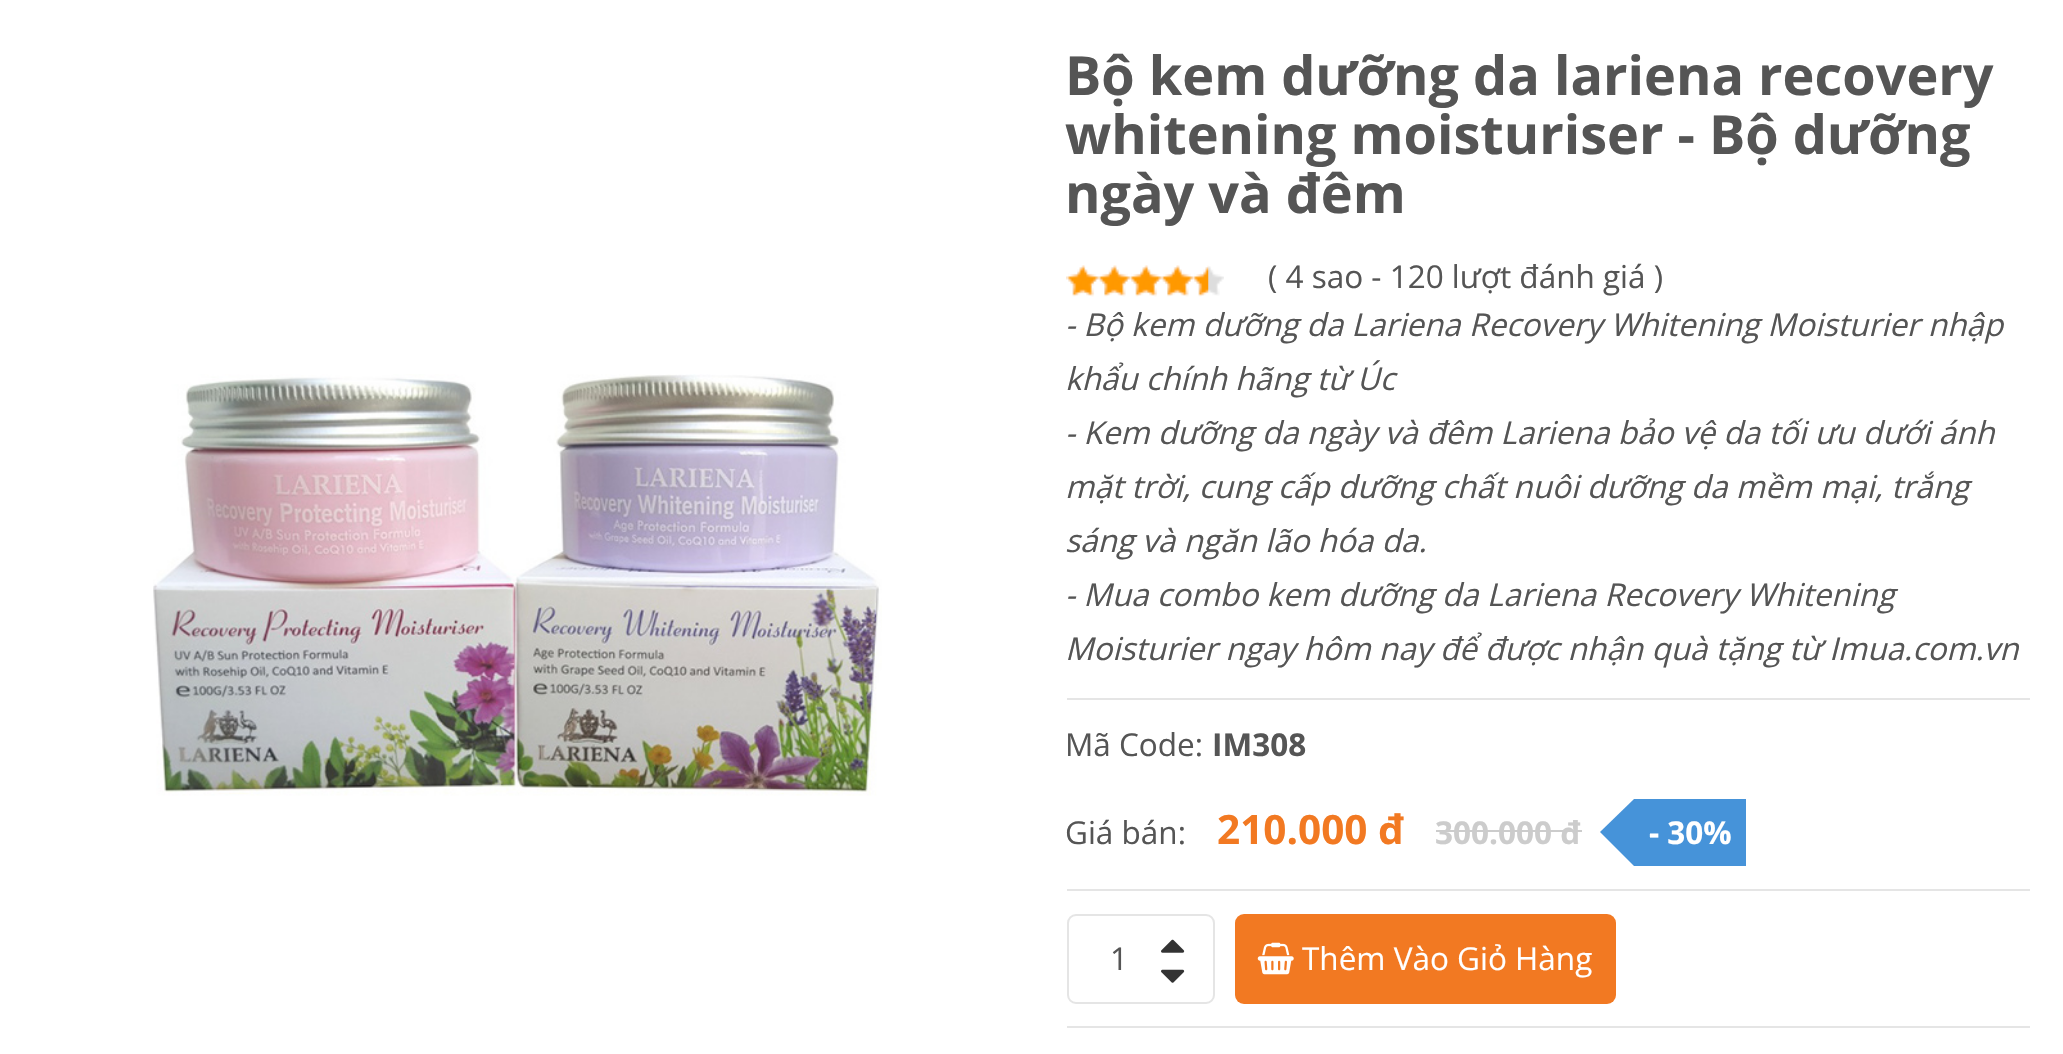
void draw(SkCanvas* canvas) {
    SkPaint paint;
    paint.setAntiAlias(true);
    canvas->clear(0xFFFFFFFF);
    canvas->drawImageRect(SkImages::DeferredFromEncodedData(SkData::MakeFromFileName("img1.png")), SkRect::MakeXYWH(153, 374, 729, 422), SkSamplingOptions());
    SkFont font1(fontMgr->matchFamilyStyle("Open Sans", SkFontStyle::Bold()), 54);
    font1.setSubpixel(true);
    paint.setColor(0xFF555555);
    canvas->drawString("Bộ kem dưỡng da lariena recovery", 1065, 95, font1, paint);
    canvas->drawString("whitening moisturiser - Bộ dưỡng", 1065, 154, font1, paint);
    canvas->drawString("ngày và đêm", 1065, 213, font1, paint);
    canvas->drawImageRect(SkImages::DeferredFromEncodedData(SkData::MakeFromFileName("img2.png")), SkRect::MakeXYWH(1066, 266, 158, 30), SkSamplingOptions());
    canvas->drawImageRect(SkImages::DeferredFromEncodedData(SkData::MakeFromFileName("img3.png")), SkRect::MakeXYWH(1066, 265, 143, 32), SkSamplingOptions());
    SkFont font2(fontMgr->matchFamilyStyle("Open Sans", SkFontStyle::Normal()), 31.5f);
    font2.setSubpixel(true);
    canvas->drawString("( 4 sao - 120 lượt đánh giá )", 1268, 288, font2, paint);
    paint.setColor(0xFFE5E5E5);
    canvas->drawRect(SkRect::MakeXYWH(1067, 698, 963, 2), paint);
    SkFont font3(fontMgr->matchFamilyStyle("Open Sans", SkFontStyle::Italic()), 31.5f);
    font3.setSubpixel(true);
    paint.setColor(0xFF555555);
    canvas->drawString("- Bộ kem dưỡng da Lariena Recovery Whitening Moisturier nhập", 1065, 336, font3, paint);
    canvas->drawString("khẩu chính hãng từ Úc", 1065, 390, font3, paint);
    canvas->drawString("- Kem dưỡng da ngày và đêm Lariena bảo vệ da tối ưu dưới ánh", 1065, 444, font3, paint);
    canvas->drawString("mặt trời, cung cấp dưỡng chất nuôi dưỡng da mềm mại, trắng", 1065, 498, font3, paint);
    canvas->drawString("sáng và ngăn lão hóa da.", 1065, 552, font3, paint);
    canvas->drawString("- Mua combo kem dưỡng da Lariena Recovery Whitening", 1065, 606, font3, paint);
    canvas->drawString("Moisturier ngay hôm nay để được nhận quà tặng từ Imua.com.vn", 1065, 660, font3, paint);
    canvas->drawString("Mã Code:", 1065, 756, font2, paint);
    SkFont font4(fontMgr->matchFamilyStyle("Open Sans", SkFontStyle::Bold()), 31.5f);
    font4.setSubpixel(true);
    canvas->drawString("IM308", 1212, 756, font4, paint);
    canvas->drawString("Giá bán:", 1065, 844, font2, paint);
    SkFont font5(fontMgr->matchFamilyStyle("Open Sans", SkFontStyle::Bold()), 40.5f);
    font5.setSubpixel(true);
    paint.setColor(0xFFF27922);
    canvas->drawString("210.000 đ", 1217, 844, font5, paint);
    paint.setColor(0xFFCCCCCC);
    canvas->drawString("300.000 đ", 1435, 844, font4, paint);
    canvas->drawRect(SkRect::MakeXYWH(1436, 830, 146, 2), paint);
    paint.setColor(0xFF4693D9);
    canvas->drawRect(SkRect::MakeXYWH(1634, 799, 112, 67), paint);
    canvas->drawPath(SkPathBuilder().moveTo(1634, 799).lineTo(1634, 866).lineTo(1600, 832).close().detach(), paint);
    paint.setColor(0xFFFFFFFF);
    canvas->drawString("- 30%", 1649, 844, font4, paint);
    paint.setColor(0xFFE5E5E5);
    canvas->drawRect(SkRect::MakeXYWH(1067, 889, 963, 2), paint);
    canvas->drawRect(SkRect::MakeXYWH(1067, 1026, 963, 2), paint);
    paint.setStyle(SkPaint::kStroke_Style);
    paint.setStrokeWidth(2);
    canvas->drawRoundRect(SkRect::MakeXYWH(1068, 915, 146, 88), 8, 8, paint);
    paint.setStyle(SkPaint::kFill_Style);
    paint.setColor(0xFF555555);
    canvas->drawString("1", 1110, 970, font2, paint);
    canvas->drawImageRect(SkImages::DeferredFromEncodedData(SkData::MakeFromFileName("img4.png")), SkRect::MakeXYWH(1161, 939, 24, 14), SkSamplingOptions());
    canvas->drawImageRect(SkImages::DeferredFromEncodedData(SkData::MakeFromFileName("img5.png")), SkRect::MakeXYWH(1161, 969, 24, 14), SkSamplingOptions());
    paint.setColor(0xFFF27922);
    canvas->drawRoundRect(SkRect::MakeXYWH(1235, 914, 381, 90), 9, 9, paint);
    canvas->drawImageRect(SkImages::DeferredFromEncodedData(SkData::MakeFromFileName("img6.png")), SkRect::MakeXYWH(1257, 942, 37, 33), SkSamplingOptions());
    paint.setColor(0xFFFFFFFF);
    canvas->drawString("Thêm Vào Giỏ Hàng", 1302, 970, font2, paint);
}
